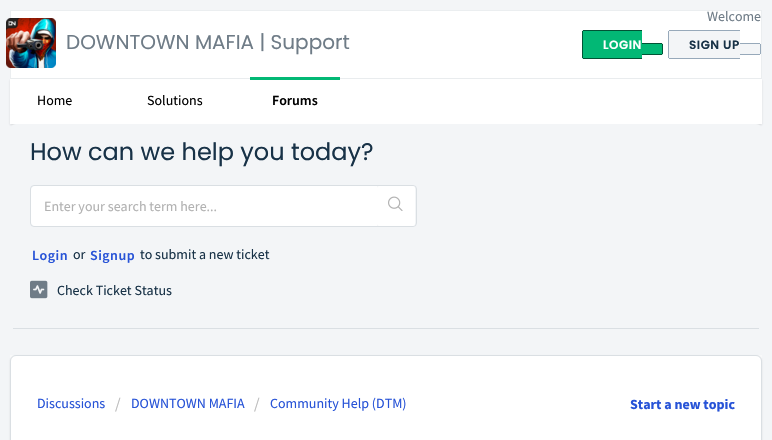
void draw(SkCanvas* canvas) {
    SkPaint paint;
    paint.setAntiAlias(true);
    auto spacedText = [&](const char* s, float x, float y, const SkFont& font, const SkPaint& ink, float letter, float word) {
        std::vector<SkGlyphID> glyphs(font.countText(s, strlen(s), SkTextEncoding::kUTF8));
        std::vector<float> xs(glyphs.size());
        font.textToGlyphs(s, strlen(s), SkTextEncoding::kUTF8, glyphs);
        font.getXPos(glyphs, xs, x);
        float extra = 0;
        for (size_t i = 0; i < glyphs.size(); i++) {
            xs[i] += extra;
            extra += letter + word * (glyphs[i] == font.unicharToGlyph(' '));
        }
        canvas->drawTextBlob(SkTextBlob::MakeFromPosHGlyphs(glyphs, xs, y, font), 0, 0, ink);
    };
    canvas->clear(0xFFF3F5F7);
    paint.setColor(0xFFFFFFFF);
    canvas->drawRect(SkRect::MakeXYWH(10.5f, 10.5f, 751, 68), paint);
    paint.setStyle(SkPaint::kStroke_Style);
    paint.setStrokeWidth(1);
    paint.setColor(0xFFEBEEF0);
    canvas->drawRect(SkRect::MakeXYWH(10.5f, 10.5f, 751, 68), paint);
    canvas->drawImageRect(SkImages::DeferredFromEncodedData(SkData::MakeFromFileName("img1.png")), SkRect::MakeXYWH(6, 18, 50, 50), SkSamplingOptions());
    SkFont font1(fontMgr->matchFamilyStyle("Poppins", SkFontStyle::Normal()), 20);
    font1.setSubpixel(true);
    paint.setStyle(SkPaint::kFill_Style);
    paint.setColor(0xFF6F7C87);
    canvas->drawString("DOWNTOWN MAFIA | Support", 66, 49, font1, paint);
    SkFont font2(fontMgr->matchFamilyStyle("Source Sans Pro", SkFontStyle::Normal()), 14);
    font2.setSubpixel(true);
    canvas->drawString("Welcome", 707, 21, font2, paint);
    paint.setColor(0xFF02B875);
    canvas->drawPath(SkPathBuilder().moveTo(584, 30).lineTo(642, 30).lineTo(642, 59).lineTo(584, 59).cubicTo(583, 59, 582, 58, 582, 57).lineTo(582, 32).cubicTo(582, 31, 583, 30, 584, 30).close().detach(), paint);
    SkFont font3(fontMgr->matchFamilyStyle("Poppins", SkFontStyle(600, SkFontStyle::kNormal_Width, SkFontStyle::kUpright_Slant)), 12);
    font3.setSubpixel(true);
    paint.setColor(0xFFFFFFFF);
    spacedText("LOGIN", 603, 49, font3, paint, 0.5f, 0);
    paint.setColor(0xFF015335);
    canvas->drawRect(SkRect::MakeXYWH(583, 30, 59, 1), paint);
    canvas->drawRect(SkRect::MakeXYWH(583, 58, 59, 1), paint);
    canvas->drawRect(SkRect::MakeXYWH(582, 31, 1, 27), paint);
    paint.setColor(0xFF02B875);
    canvas->drawPath(SkPathBuilder().moveTo(642, 43).lineTo(661, 43).cubicTo(662, 43, 663, 44, 663, 45).lineTo(663, 53).cubicTo(663, 54, 662, 55, 661, 55).lineTo(642, 55).close().detach(), paint);
    paint.setColor(0xFF015335);
    canvas->drawRect(SkRect::MakeXYWH(642, 43, 20, 1), paint);
    canvas->drawRect(SkRect::MakeXYWH(662, 44, 1, 10), paint);
    canvas->drawRect(SkRect::MakeXYWH(642, 54, 20, 1), paint);
    paint.setColor(0xFFF3F5F7);
    canvas->drawPath(SkPathBuilder().moveTo(670, 30).lineTo(740, 30).lineTo(740, 59).lineTo(670, 59).cubicTo(669, 59, 668, 58, 668, 57).lineTo(668, 32).cubicTo(668, 31, 669, 30, 670, 30).close().detach(), paint);
    paint.setColor(0xFF183247);
    spacedText("SIGN UP", 689, 49, font3, paint, 0.5f, 0);
    paint.setColor(0xFF97A9BA);
    canvas->drawRect(SkRect::MakeXYWH(669, 30, 71, 1), paint);
    canvas->drawRect(SkRect::MakeXYWH(669, 58, 71, 1), paint);
    canvas->drawRect(SkRect::MakeXYWH(668, 31, 1, 27), paint);
    paint.setColor(0xFFF3F5F7);
    canvas->drawPath(SkPathBuilder().moveTo(740, 43).lineTo(759, 43).cubicTo(760, 43, 761, 44, 761, 45).lineTo(761, 53).cubicTo(761, 54, 760, 55, 759, 55).lineTo(740, 55).close().detach(), paint);
    paint.setColor(0xFF97A9BA);
    canvas->drawRect(SkRect::MakeXYWH(740, 43, 20, 1), paint);
    canvas->drawRect(SkRect::MakeXYWH(760, 44, 1, 10), paint);
    canvas->drawRect(SkRect::MakeXYWH(740, 54, 20, 1), paint);
    paint.setColor(0x263F3F44);
    paint.setMaskFilter(SkMaskFilter::MakeBlur(kNormal_SkBlurStyle, 1));
    canvas->drawRect(SkRect::MakeXYWH(10, 80, 752, 45), paint);
    paint.setMaskFilter(nullptr);
    paint.setColor(0xFFFFFFFF);
    canvas->drawRect(SkRect::MakeXYWH(10, 79, 752, 45), paint);
    paint.setColor(0xFF000000);
    canvas->drawString("Home", 37, 105, font2, paint);
    canvas->drawString("Solutions", 147, 105, font2, paint);
    paint.setColor(0xFF02B875);
    canvas->drawRect(SkRect::MakeXYWH(250, 77, 90, 3), paint);
    SkFont font4(fontMgr->matchFamilyStyle("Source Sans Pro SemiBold", SkFontStyle(600, SkFontStyle::kNormal_Width, SkFontStyle::kUpright_Slant)), 14);
    font4.setSubpixel(true);
    paint.setColor(0xFF000000);
    canvas->drawString("Forums", 272, 105, font4, paint);
    paint.setColor(0xFFF3F5F7);
    canvas->drawRoundRect(SkRect::MakeXYWH(10, 124, 752, 205), 6, 6, paint);
    paint.setColor(0xFFDADFE3);
    canvas->drawRect(SkRect::MakeXYWH(13, 328, 746, 1), paint);
    SkFont font5(fontMgr->matchFamilyStyle("Poppins", SkFontStyle::Normal()), 24);
    font5.setSubpixel(true);
    paint.setColor(0xFF183247);
    canvas->drawString("How can we help you today?", 30, 160, font5, paint);
    paint.setStyle(SkPaint::kStroke_Style);
    paint.setColor(0xFFDADFE3);
    canvas->drawRoundRect(SkRect::MakeXYWH(30.5f, 185.5f, 386, 41), 3.5f, 3.5f, paint);
    paint.setStyle(SkPaint::kFill_Style);
    paint.setColor(0xFFFFFFFF);
    canvas->drawPath(SkPathBuilder().moveTo(35, 186).lineTo(377, 186).lineTo(377, 226).lineTo(35, 226).cubicTo(33, 226, 31, 224, 31, 222).lineTo(31, 190).cubicTo(31, 188, 33, 186, 35, 186).close().detach(), paint);
    paint.setColor(0xFFB2B2B2);
    canvas->drawString("Enter your search term here...", 44, 211, font2, paint);
    paint.setColor(0xFFFFFFFF);
    canvas->drawRoundRect(SkRect::MakeXYWH(377, 186, 38, 40), 2, 2, paint);
    canvas->drawImageRect(SkImages::DeferredFromEncodedData(SkData::MakeFromFileName("img2.png")), SkRect::MakeXYWH(388, 196, 15, 15), SkSamplingOptions());
    paint.setColor(0xFF2753D7);
    spacedText("Login", 32, 260, font4, paint, 0.5f, 0);
    paint.setColor(0xFF183247);
    canvas->drawString("or", 73, 259, font2, paint);
    paint.setColor(0xFF2753D7);
    spacedText("Signup", 90, 260, font4, paint, 0.5f, 0);
    paint.setColor(0xFF183247);
    canvas->drawString("to submit a new ticket", 140, 259, font2, paint);
    canvas->drawImageRect(SkImages::DeferredFromEncodedData(SkData::MakeFromFileName("img3.png")), SkRect::MakeXYWH(30, 280, 18, 19), SkSamplingOptions());
    canvas->drawString("Check Ticket Status", 57, 295, font2, paint);
    paint.setColor(0xFFF8F9FA);
    canvas->drawRect(SkRect::MakeXYWH(10, 355, 752, 6), paint);
    paint.setColor(0x263F3F44);
    paint.setMaskFilter(SkMaskFilter::MakeBlur(kNormal_SkBlurStyle, 1));
    canvas->drawRoundRect(SkRect::MakeXYWH(10, 356, 752, 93), 6, 6, paint);
    paint.setMaskFilter(nullptr);
    paint.setColor(0xFFFFFFFF);
    canvas->drawRoundRect(SkRect::MakeXYWH(10.5f, 355.5f, 751, 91), 5.5f, 5.5f, paint);
    paint.setStyle(SkPaint::kStroke_Style);
    paint.setColor(0xFFDADFE3);
    canvas->drawRoundRect(SkRect::MakeXYWH(10.5f, 355.5f, 751, 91), 5.5f, 5.5f, paint);
    paint.setStyle(SkPaint::kFill_Style);
    paint.setColor(0xFF2753D7);
    canvas->drawString("Discussions", 37, 408, font2, paint);
    SkFont font6(fontMgr->matchFamilyStyle("Source Sans Pro", SkFontStyle::Normal()), 16);
    font6.setSubpixel(true);
    paint.setColor(0xFFBBBBBB);
    canvas->drawString("/", 115, 409, font6, paint);
    paint.setColor(0xFF2753D7);
    canvas->drawString("DOWNTOWN MAFIA", 131, 408, font2, paint);
    paint.setColor(0xFFBBBBBB);
    canvas->drawString("/", 254, 409, font6, paint);
    paint.setColor(0xFF2753D7);
    canvas->drawString("Community Help (DTM)", 270, 408, font2, paint);
    SkFont font7(fontMgr->matchFamilyStyle("Source Sans Pro", SkFontStyle::Bold()), 14);
    font7.setSubpixel(true);
    canvas->drawString("Start a new topic", 630, 409, font7, paint);
}
